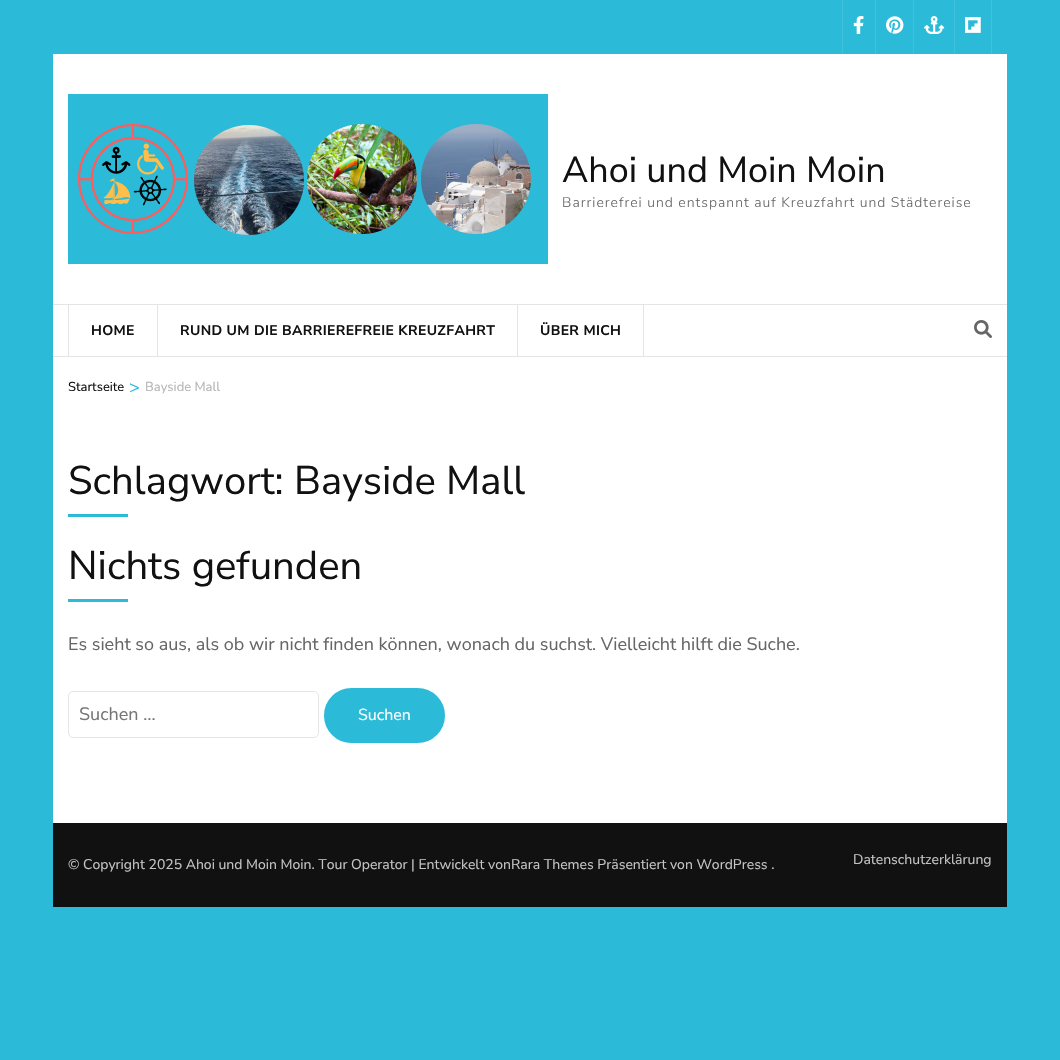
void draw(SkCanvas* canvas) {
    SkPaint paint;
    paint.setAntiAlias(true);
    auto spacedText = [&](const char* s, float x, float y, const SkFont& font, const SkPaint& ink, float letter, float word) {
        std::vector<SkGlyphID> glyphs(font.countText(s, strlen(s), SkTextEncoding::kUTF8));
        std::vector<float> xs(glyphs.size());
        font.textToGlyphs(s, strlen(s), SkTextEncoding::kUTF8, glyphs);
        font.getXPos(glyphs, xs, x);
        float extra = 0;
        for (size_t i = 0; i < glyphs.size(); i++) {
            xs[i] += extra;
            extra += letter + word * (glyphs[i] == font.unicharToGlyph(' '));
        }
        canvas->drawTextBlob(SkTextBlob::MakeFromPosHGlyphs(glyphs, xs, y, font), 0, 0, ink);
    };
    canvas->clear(0xFF2BBAD8);
    paint.setColor(0xFFFFFFFF);
    canvas->drawRect(SkRect::MakeXYWH(53, 54, 954, 769), paint);
    paint.setColor(0xFF40C1DC);
    canvas->drawRect(SkRect::MakeXYWH(875, 0, 1, 54), paint);
    canvas->drawRect(SkRect::MakeXYWH(842, 0, 1, 54), paint);
    canvas->drawImageRect(SkImages::DeferredFromEncodedData(SkData::MakeFromFileName("img1.png")), SkRect::MakeXYWH(853, 16, 11, 18), SkSamplingOptions());
    canvas->drawRect(SkRect::MakeXYWH(913, 0, 1, 54), paint);
    canvas->drawImageRect(SkImages::DeferredFromEncodedData(SkData::MakeFromFileName("img2.png")), SkRect::MakeXYWH(886, 16, 18, 18), SkSamplingOptions());
    canvas->drawRect(SkRect::MakeXYWH(954, 0, 1, 54), paint);
    canvas->drawImageRect(SkImages::DeferredFromEncodedData(SkData::MakeFromFileName("img3.png")), SkRect::MakeXYWH(924, 16, 21, 18), SkSamplingOptions());
    canvas->drawRect(SkRect::MakeXYWH(991, 0, 1, 54), paint);
    canvas->drawImageRect(SkImages::DeferredFromEncodedData(SkData::MakeFromFileName("img4.png")), SkRect::MakeXYWH(965, 17, 16, 16), SkSamplingOptions());
    canvas->drawImageRect(SkImages::DeferredFromEncodedData(SkData::MakeFromFileName("img5.png")), SkRect::MakeXYWH(68, 94, 480, 170), SkSamplingOptions());
    SkFont font1(fontMgr->matchFamilyStyle("Nunito Sans", SkFontStyle::Normal()), 36);
    font1.setSubpixel(true);
    paint.setColor(0xFF111111);
    canvas->drawString("Ahoi und Moin Moin", 562, 182, font1, paint);
    SkFont font2(fontMgr->matchFamilyStyle("Nunito Sans", SkFontStyle(300, SkFontStyle::kNormal_Width, SkFontStyle::kUpright_Slant)), 14);
    font2.setSubpixel(true);
    paint.setColor(0xFF666666);
    spacedText("Barrierefrei und entspannt auf Kreuzfahrt und Städtereise", 562, 207, font2, paint, 1, 0);
    paint.setColor(0xFFE5E5E5);
    canvas->drawRect(SkRect::MakeXYWH(53, 304, 954, 1), paint);
    canvas->drawRect(SkRect::MakeXYWH(53, 356, 954, 1), paint);
    canvas->drawRect(SkRect::MakeXYWH(157, 305, 1, 51), paint);
    canvas->drawRect(SkRect::MakeXYWH(68, 305, 1, 51), paint);
    SkFont font3(fontMgr->matchFamilyStyle("Nunito Sans", SkFontStyle::Bold()), 14);
    font3.setSubpixel(true);
    paint.setColor(0xFF111111);
    spacedText("HOME", 91, 335, font3, paint, 0.35f, 0);
    paint.setColor(0xFFE5E5E5);
    canvas->drawRect(SkRect::MakeXYWH(517, 305, 1, 51), paint);
    paint.setColor(0xFF111111);
    spacedText("RUND UM DIE BARRIEREFREIE KREUZFAHRT", 180, 335, font3, paint, 0.35f, 0);
    paint.setColor(0xFFE5E5E5);
    canvas->drawRect(SkRect::MakeXYWH(643, 305, 1, 51), paint);
    paint.setColor(0xFF111111);
    spacedText("ÜBER MICH", 540, 335, font3, paint, 0.35f, 0);
    canvas->drawImageRect(SkImages::DeferredFromEncodedData(SkData::MakeFromFileName("img6.png")), SkRect::MakeXYWH(974, 320, 18, 18), SkSamplingOptions());
    SkFont font4(fontMgr->matchFamilyStyle("Nunito Sans", SkFontStyle::Normal()), 13);
    font4.setSubpixel(true);
    canvas->drawString("Startseite", 68, 391, font4, paint);
    SkFont font5(fontMgr->matchFamilyStyle("Nunito Sans", SkFontStyle::Normal()), 18);
    font5.setSubpixel(true);
    paint.setColor(0xFF2BBBD8);
    canvas->drawString(">", 129, 393, font5, paint);
    paint.setColor(0xFFB5B5B5);
    canvas->drawString("Bayside Mall", 145, 391, font4, paint);
    SkFont font6(fontMgr->matchFamilyStyle("Nunito Sans", SkFontStyle::Normal()), 40);
    font6.setSubpixel(true);
    paint.setColor(0xFF111111);
    canvas->drawString("Schlagwort: Bayside Mall", 68, 494, font6, paint);
    paint.setColor(0xFF2BBBD8);
    canvas->drawRect(SkRect::MakeXYWH(68, 514, 60, 3), paint);
    paint.setColor(0xFF111111);
    canvas->drawString("Nichts gefunden", 68, 579, font6, paint);
    paint.setColor(0xFF2BBBD8);
    canvas->drawRect(SkRect::MakeXYWH(68, 599, 60, 3), paint);
    paint.setColor(0xFF666666);
    canvas->drawString("Es sieht so aus, als ob wir nicht finden können, wonach du suchst. Vielleicht hilft die Suche.", 68, 650, font5, paint);
    paint.setStyle(SkPaint::kStroke_Style);
    paint.setStrokeWidth(1);
    paint.setColor(0xFFE5E5E5);
    canvas->drawRoundRect(SkRect::MakeXYWH(68.5f, 691.5f, 250, 46), 4.5f, 4.5f, paint);
    paint.setStyle(SkPaint::kFill_Style);
    paint.setColor(0xFF757575);
    canvas->drawString("Suchen …", 79, 720, font5, paint);
    paint.setColor(0xFF2BBBD8);
    canvas->drawRoundRect(SkRect::MakeXYWH(325, 689, 119, 53), 26.5f, 26.5f, paint);
    paint.setStyle(SkPaint::kStroke_Style);
    paint.setStrokeWidth(2);
    canvas->drawRoundRect(SkRect::MakeXYWH(325, 689, 119, 53), 26.5f, 26.5f, paint);
    SkFont font7(fontMgr->matchFamilyStyle("Nunito Sans", SkFontStyle::Normal()), 16);
    font7.setSubpixel(true);
    paint.setStyle(SkPaint::kFill_Style);
    paint.setColor(0xFFFFFFFF);
    canvas->drawString("Suchen", 358, 720, font7, paint);
    paint.setColor(0xFF111111);
    canvas->drawRect(SkRect::MakeXYWH(53, 823, 954, 84), paint);
    SkFont font8(fontMgr->matchFamilyStyle("Nunito Sans", SkFontStyle::Normal()), 14);
    font8.setSubpixel(true);
    paint.setColor(0xFFC4C4C4);
    canvas->drawString("© Copyright 2025 Ahoi und Moin Moin. Tour Operator | Entwickelt vonRara Themes Präsentiert von WordPress .", 68, 869, font8, paint);
    canvas->drawString("Datenschutzerklärung", 853, 864, font8, paint);
}
